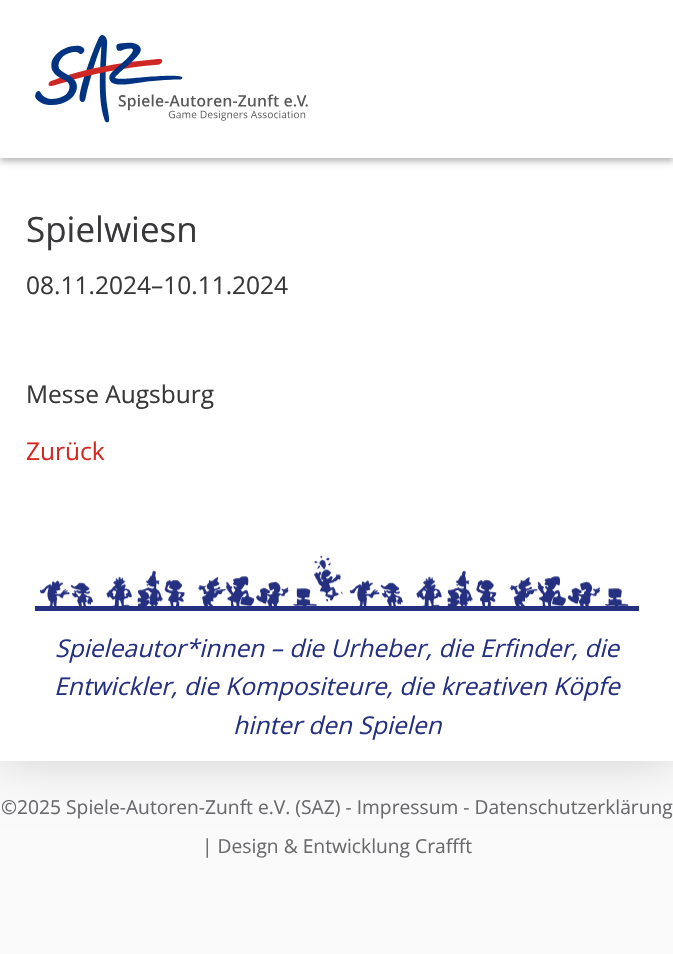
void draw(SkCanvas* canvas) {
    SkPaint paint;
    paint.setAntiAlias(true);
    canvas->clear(0xFFFAFAFA);
    paint.setColor(0x2B000000);
    paint.setMaskFilter(SkMaskFilter::MakeBlur(kNormal_SkBlurStyle, 22));
    canvas->drawRect(SkRect::MakeXYWH(0, 0, 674, 761), paint);
    paint.setMaskFilter(nullptr);
    paint.setColor(0xFFFFFFFF);
    canvas->drawRect(SkRect::MakeXYWH(0, 158, 673, 603), paint);
    paint.setColor(0x4D000000);
    paint.setMaskFilter(SkMaskFilter::MakeBlur(kNormal_SkBlurStyle, 3.5f));
    canvas->drawRect(SkRect::MakeXYWH(0, 4, 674, 157), paint);
    paint.setMaskFilter(nullptr);
    paint.setColor(0xFFFFFFFF);
    canvas->drawRect(SkRect::MakeXYWH(0, 0, 673, 158), paint);
    canvas->drawImageRect(SkImages::DeferredFromEncodedData(SkData::MakeFromFileName("img1.png")), SkRect::MakeXYWH(35, 35, 273, 88), SkSamplingOptions());
    SkFont font1(fontMgr->matchFamilyStyle("Open Sans", SkFontStyle::Normal()), 35);
    font1.setSubpixel(true);
    paint.setColor(0xFF38383A);
    canvas->drawString("Spielwiesn", 26, 242, font1, paint);
    SkFont font2(fontMgr->matchFamilyStyle("Open Sans", SkFontStyle::Normal()), 24.5f);
    font2.setSubpixel(true);
    canvas->drawString("08.11.2024–10.11.2024", 26, 294, font2, paint);
    canvas->drawString("Messe Augsburg", 26, 403, font2, paint);
    paint.setColor(0xFFD6271F);
    canvas->drawString("Zurück", 26, 460, font2, paint);
    canvas->drawImageRect(SkImages::DeferredFromEncodedData(SkData::MakeFromFileName("img2.png")), SkRect::MakeXYWH(40, 555, 589, 51), SkSamplingOptions());
    paint.setColor(0xFF253081);
    canvas->drawRect(SkRect::MakeXYWH(35, 606, 604, 5), paint);
    SkFont font3(fontMgr->matchFamilyStyle("Open Sans", SkFontStyle::Italic()), 24.5f);
    font3.setSubpixel(true);
    canvas->drawString("Spieleautor*innen – die Urheber, die Erfinder, die", 55, 657, font3, paint);
    canvas->drawString("Entwickler, die Kompositeure, die kreativen Köpfe", 54, 695, font3, paint);
    canvas->drawString("hinter den Spielen", 233, 734, font3, paint);
    SkFont font4(fontMgr->matchFamilyStyle("Open Sans", SkFontStyle::Normal()), 19.25f);
    font4.setSubpixel(true);
    paint.setColor(0xFF6A6A6E);
    canvas->drawString("©2025 Spiele-Autoren-Zunft e.V. (SAZ) - Impressum - Datenschutzerklärung", 1, 814, font4, paint);
    canvas->drawString("| Design & Entwicklung Craffft", 202, 853, font4, paint);
}
